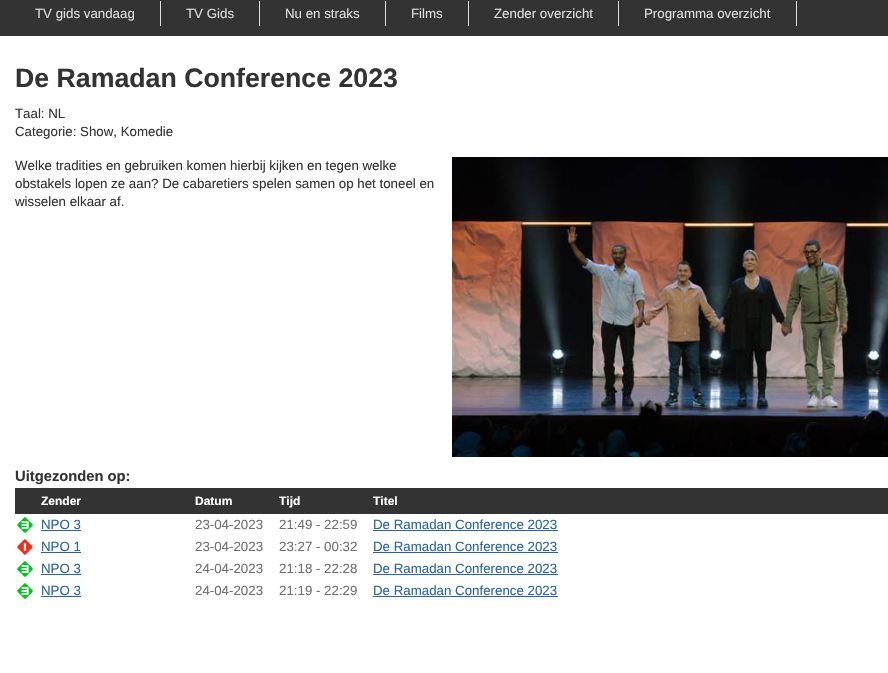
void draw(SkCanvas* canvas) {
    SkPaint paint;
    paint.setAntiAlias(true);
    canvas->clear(0xFFFFFFFF);
    paint.setColor(0xFF333333);
    canvas->drawRect(SkRect::MakeXYWH(0, 0, 888, 36), paint);
    paint.setColor(0xFFDDDDDD);
    canvas->drawRect(SkRect::MakeXYWH(160, 1, 1, 25), paint);
    SkFont font1(fontMgr->matchFamilyStyle("Liberation Sans", SkFontStyle::Normal()), 13.3f);
    font1.setSubpixel(true);
    canvas->drawString("TV gids vandaag", 35, 18, font1, paint);
    canvas->drawRect(SkRect::MakeXYWH(259, 1, 1, 25), paint);
    canvas->drawString("TV Gids", 186, 18, font1, paint);
    canvas->drawRect(SkRect::MakeXYWH(385, 1, 1, 25), paint);
    canvas->drawString("Nu en straks", 285, 18, font1, paint);
    canvas->drawRect(SkRect::MakeXYWH(468, 1, 1, 25), paint);
    canvas->drawString("Films", 411, 18, font1, paint);
    canvas->drawRect(SkRect::MakeXYWH(618, 1, 1, 25), paint);
    canvas->drawString("Zender overzicht", 494, 18, font1, paint);
    canvas->drawRect(SkRect::MakeXYWH(796, 1, 1, 25), paint);
    canvas->drawString("Programma overzicht", 644, 18, font1, paint);
    SkFont font2(fontMgr->matchFamilyStyle("Liberation Sans", SkFontStyle::Bold()), 26.7f);
    font2.setSubpixel(true);
    paint.setColor(0xFF333333);
    canvas->drawString("De Ramadan Conference 2023", 15, 87, font2, paint);
    canvas->drawString("Taal: NL", 15, 118, font1, paint);
    canvas->drawString("Categorie: Show, Komedie", 15, 136, font1, paint);
    canvas->drawString("Welke tradities en gebruiken komen hierbij kijken en tegen welke", 15, 170, font1, paint);
    canvas->drawImageRect(SkImages::DeferredFromEncodedData(SkData::MakeFromFileName("img1.png")), SkRect::MakeXYWH(452, 157, 436, 300), SkSamplingOptions());
    canvas->drawString("obstakels lopen ze aan? De cabaretiers spelen samen op het toneel en", 15, 188, font1, paint);
    canvas->drawString("wisselen elkaar af.", 15, 206, font1, paint);
    SkFont font3(fontMgr->matchFamilyStyle("Liberation Sans", SkFontStyle::Bold()), 14.75f);
    font3.setSubpixel(true);
    canvas->drawString("Uitgezonden op:", 15, 481, font3, paint);
    canvas->drawRect(SkRect::MakeXYWH(15, 488, 873, 26), paint);
    SkFont font4(fontMgr->matchFamilyStyle("Liberation Sans", SkFontStyle::Bold()), 12);
    font4.setSubpixel(true);
    paint.setColor(0xFFFFFFFF);
    canvas->drawString("Zender", 41, 505, font4, paint);
    canvas->drawString("Datum", 195, 505, font4, paint);
    canvas->drawString("Tijd", 279, 505, font4, paint);
    canvas->drawString("Titel", 373, 505, font4, paint);
    canvas->drawImageRect(SkImages::DeferredFromEncodedData(SkData::MakeFromFileName("img2.png")), SkRect::MakeXYWH(17, 517, 16, 16), SkSamplingOptions());
    paint.setColor(0xFF2664A3);
    canvas->drawString("NPO 3", 41, 529, font1, paint);
    canvas->drawRect(SkRect::MakeXYWH(41, 530, 40, 1), paint);
    paint.setColor(0xFF717171);
    canvas->drawString("23-04-2023", 195, 529, font1, paint);
    canvas->drawString("21:49 - 22:59", 279, 529, font1, paint);
    paint.setColor(0xFF2664A3);
    canvas->drawString("De Ramadan Conference 2023", 373, 529, font1, paint);
    canvas->drawRect(SkRect::MakeXYWH(373, 530, 185, 1), paint);
    canvas->drawImageRect(SkImages::DeferredFromEncodedData(SkData::MakeFromFileName("img3.png")), SkRect::MakeXYWH(17, 539, 16, 16), SkSamplingOptions());
    canvas->drawString("NPO 1", 41, 551, font1, paint);
    canvas->drawRect(SkRect::MakeXYWH(41, 552, 40, 1), paint);
    paint.setColor(0xFF717171);
    canvas->drawString("23-04-2023", 195, 551, font1, paint);
    canvas->drawString("23:27 - 00:32", 279, 551, font1, paint);
    paint.setColor(0xFF2664A3);
    canvas->drawString("De Ramadan Conference 2023", 373, 551, font1, paint);
    canvas->drawRect(SkRect::MakeXYWH(373, 552, 185, 1), paint);
    canvas->drawImageRect(SkImages::DeferredFromEncodedData(SkData::MakeFromFileName("img2.png")), SkRect::MakeXYWH(17, 561, 16, 16), SkSamplingOptions());
    canvas->drawString("NPO 3", 41, 573, font1, paint);
    canvas->drawRect(SkRect::MakeXYWH(41, 574, 40, 1), paint);
    paint.setColor(0xFF717171);
    canvas->drawString("24-04-2023", 195, 573, font1, paint);
    canvas->drawString("21:18 - 22:28", 279, 573, font1, paint);
    paint.setColor(0xFF2664A3);
    canvas->drawString("De Ramadan Conference 2023", 373, 573, font1, paint);
    canvas->drawRect(SkRect::MakeXYWH(373, 574, 185, 1), paint);
    canvas->drawImageRect(SkImages::DeferredFromEncodedData(SkData::MakeFromFileName("img2.png")), SkRect::MakeXYWH(17, 583, 16, 16), SkSamplingOptions());
    canvas->drawString("NPO 3", 41, 595, font1, paint);
    canvas->drawRect(SkRect::MakeXYWH(41, 596, 40, 1), paint);
    paint.setColor(0xFF717171);
    canvas->drawString("24-04-2023", 195, 595, font1, paint);
    canvas->drawString("21:19 - 22:29", 279, 595, font1, paint);
    paint.setColor(0xFF2664A3);
    canvas->drawString("De Ramadan Conference 2023", 373, 595, font1, paint);
    canvas->drawRect(SkRect::MakeXYWH(373, 596, 185, 1), paint);
}
